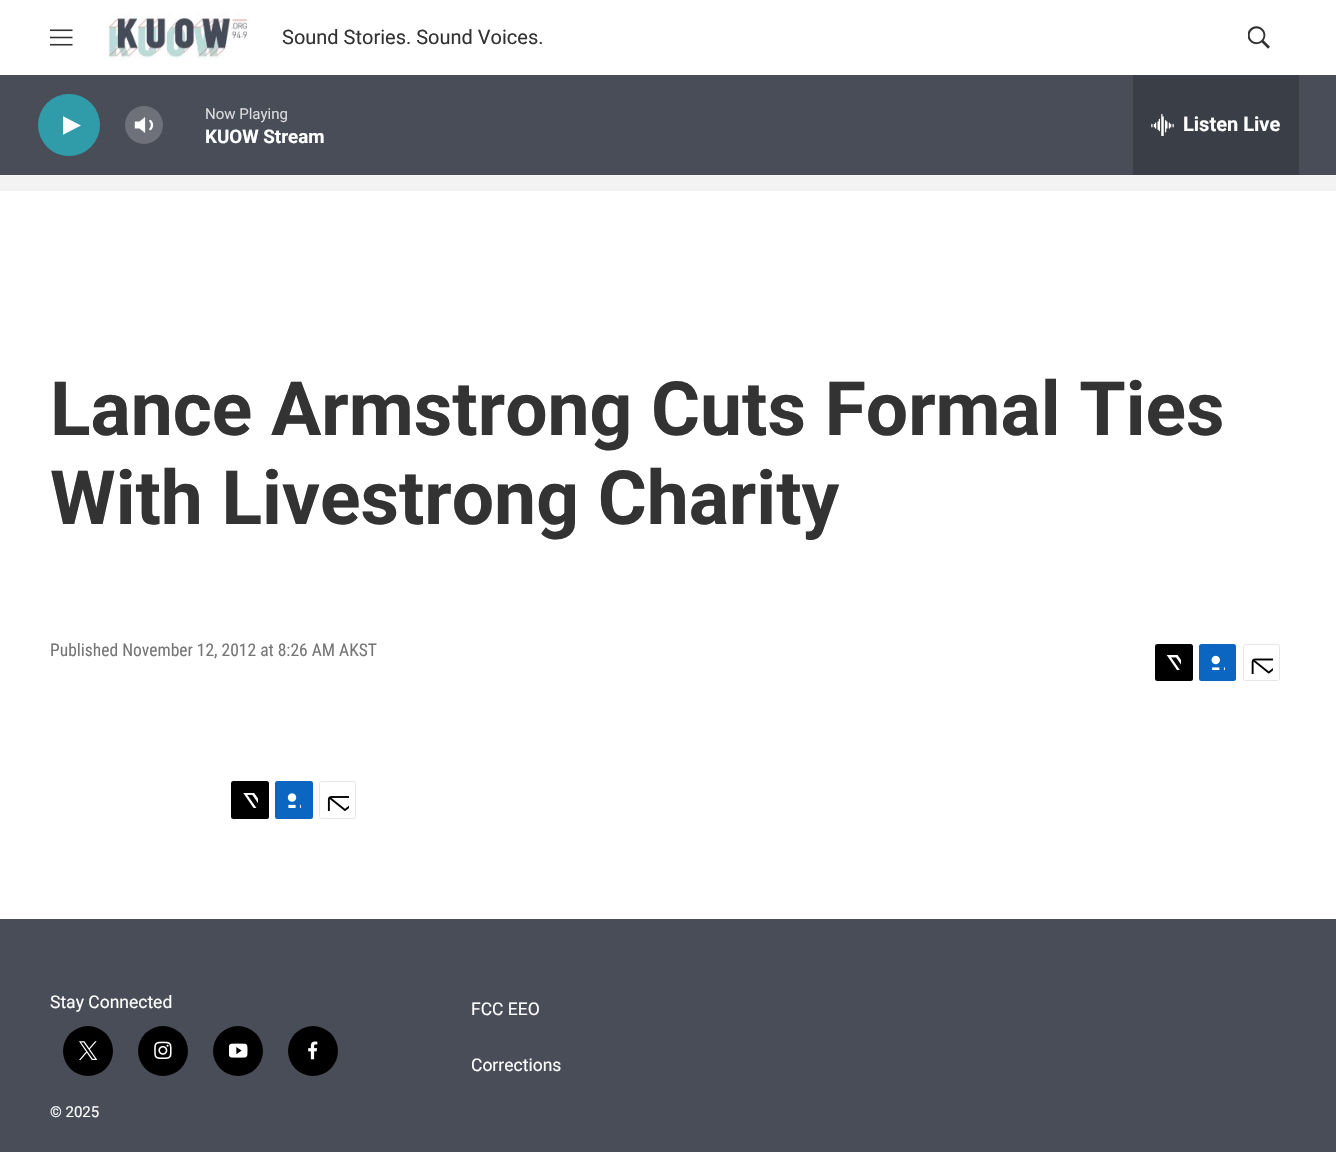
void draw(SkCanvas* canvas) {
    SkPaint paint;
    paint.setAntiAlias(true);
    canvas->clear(0xFFFFFFFF);
    paint.setColor(0xFFF5F5F5);
    canvas->drawRect(SkRect::MakeXYWH(0, 175, 1336, 1), paint);
    canvas->drawImageRect(SkImages::DeferredFromEncodedData(SkData::MakeFromFileName("img1.png")), SkRect::MakeXYWH(50, 29, 23, 17), SkSamplingOptions());
    canvas->drawImageRect(SkImages::DeferredFromEncodedData(SkData::MakeFromFileName("img2.png")), SkRect::MakeXYWH(104, 13, 146, 47), SkSamplingOptions());
    SkFont font1(fontMgr->matchFamilyStyle("Roboto", SkFontStyle::Normal()), 20);
    font1.setSubpixel(true);
    paint.setColor(0xFF333333);
    canvas->drawString("Sound Stories. Sound Voices.", 282, 44, font1, paint);
    canvas->drawImageRect(SkImages::DeferredFromEncodedData(SkData::MakeFromFileName("img3.png")), SkRect::MakeXYWH(1248, 26, 22, 23), SkSamplingOptions());
    paint.setColor(0xFF494D58);
    canvas->drawRect(SkRect::MakeXYWH(0, 75, 1336, 100), paint);
    paint.setColor(0xFF309CA9);
    canvas->drawCircle(69, 125, 31, paint);
    canvas->save();
    canvas->clipRect(SkRect::MakeXYWH(63, 114, 18, 24));
    paint.setColor(0xFFFFFFFF);
    canvas->drawPath(SkPathBuilder().moveTo(62.5f, 116).lineTo(81, 125.5f).lineTo(62.5f, 135).close().detach(), paint);
    canvas->restore();
    canvas->drawImageRect(SkImages::DeferredFromEncodedData(SkData::MakeFromFileName("img4.png")), SkRect::MakeXYWH(134, 117, 20, 16), SkSamplingOptions());
    paint.setColor(0x33FFFFFF);
    canvas->drawCircle(144, 125, 19, paint);
    SkFont font2(fontMgr->matchFamilyStyle("Roboto", SkFontStyle::Normal()), 15);
    font2.setSubpixel(true);
    paint.setColor(0xFFDBDBDE);
    canvas->drawString("Now Playing", 205, 119, font2, paint);
    SkFont font3(fontMgr->matchFamilyStyle("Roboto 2", SkFontStyle::Bold()), 18.75f);
    font3.setSubpixel(true);
    paint.setColor(0xFFFFFFFF);
    canvas->drawString("KUOW Stream", 205, 143, font3, paint);
    paint.setColor(0xFF3A3E46);
    canvas->drawRect(SkRect::MakeXYWH(1133, 75, 166, 100), paint);
    canvas->drawImageRect(SkImages::DeferredFromEncodedData(SkData::MakeFromFileName("img5.png")), SkRect::MakeXYWH(1151, 114, 23, 22), SkSamplingOptions());
    SkFont font4(fontMgr->matchFamilyStyle("Roboto 2", SkFontStyle::Bold()), 20);
    font4.setSubpixel(true);
    paint.setColor(0xFFFFFFFF);
    canvas->drawString("Listen Live", 1183, 131, font4, paint);
    paint.setColor(0xFFF3F3F3);
    canvas->drawRect(SkRect::MakeXYWH(0, 176, 1336, 15), paint);
    SkFont font5(fontMgr->matchFamilyStyle("Roboto", SkFontStyle::Bold()), 75);
    font5.setSubpixel(true);
    paint.setColor(0xFF333333);
    canvas->drawString("Lance Armstrong Cuts Formal Ties", 50, 435, font5, paint);
    canvas->drawString("With Livestrong Charity", 50, 524, font5, paint);
    SkFont font6(fontMgr->matchFamilyStyle("Roboto Condensed", SkFontStyle::Normal()), 17.5f);
    font6.setSubpixel(true);
    paint.setColor(0xFF767676);
    canvas->drawString("Published November 12, 2012 at 8:26 AM AKST", 50, 656, font6, paint);
    paint.setColor(0xFF000000);
    canvas->drawRoundRect(SkRect::MakeXYWH(1155, 644, 38, 37), 2.5f, 2.5f, paint);
    canvas->drawImageRect(SkImages::DeferredFromEncodedData(SkData::MakeFromFileName("img6.png")), SkRect::MakeXYWH(1166, 655, 15, 15), SkSamplingOptions());
    paint.setColor(0xFF0A66C1);
    canvas->drawRoundRect(SkRect::MakeXYWH(1199, 644, 37, 37), 2.5f, 2.5f, paint);
    canvas->drawImageRect(SkImages::DeferredFromEncodedData(SkData::MakeFromFileName("img7.png")), SkRect::MakeXYWH(1211, 655, 14, 15), SkSamplingOptions());
    paint.setStyle(SkPaint::kStroke_Style);
    paint.setStrokeWidth(1);
    paint.setColor(0xFFE6E6E6);
    canvas->drawRoundRect(SkRect::MakeXYWH(1243.5f, 644.5f, 36, 36), 2, 2, paint);
    canvas->drawImageRect(SkImages::DeferredFromEncodedData(SkData::MakeFromFileName("img8.png")), SkRect::MakeXYWH(1251, 658, 22, 16), SkSamplingOptions());
    paint.setStyle(SkPaint::kFill_Style);
    paint.setColor(0xFF000000);
    canvas->drawRoundRect(SkRect::MakeXYWH(231, 781, 38, 38), 2.5f, 2.5f, paint);
    canvas->drawImageRect(SkImages::DeferredFromEncodedData(SkData::MakeFromFileName("img9.png")), SkRect::MakeXYWH(243, 793, 15, 15), SkSamplingOptions());
    paint.setColor(0xFF0A66C1);
    canvas->drawRoundRect(SkRect::MakeXYWH(275, 781, 38, 38), 2.5f, 2.5f, paint);
    canvas->drawImageRect(SkImages::DeferredFromEncodedData(SkData::MakeFromFileName("img10.png")), SkRect::MakeXYWH(287, 793, 14, 15), SkSamplingOptions());
    paint.setStyle(SkPaint::kStroke_Style);
    paint.setColor(0xFFE6E6E6);
    canvas->drawRoundRect(SkRect::MakeXYWH(319.5f, 781.5f, 36, 37), 2, 2, paint);
    canvas->drawImageRect(SkImages::DeferredFromEncodedData(SkData::MakeFromFileName("img11.png")), SkRect::MakeXYWH(327, 796, 22, 15), SkSamplingOptions());
    paint.setStyle(SkPaint::kFill_Style);
    paint.setColor(0xFF494D58);
    canvas->drawRect(SkRect::MakeXYWH(0, 919, 1336, 233), paint);
    SkFont font7(fontMgr->matchFamilyStyle("Roboto", SkFontStyle::Normal()), 17.5f);
    font7.setSubpixel(true);
    paint.setColor(0xFFFFFFFF);
    canvas->drawString("Stay Connected", 50, 1008, font7, paint);
    paint.setColor(0xFF000000);
    canvas->drawCircle(88, 1051, 25, paint);
    canvas->drawImageRect(SkImages::DeferredFromEncodedData(SkData::MakeFromFileName("img12.png")), SkRect::MakeXYWH(79, 1041, 19, 19), SkSamplingOptions());
    canvas->drawCircle(163, 1051, 25, paint);
    canvas->drawImageRect(SkImages::DeferredFromEncodedData(SkData::MakeFromFileName("img13.png")), SkRect::MakeXYWH(154, 1041, 18, 18), SkSamplingOptions());
    canvas->drawCircle(238, 1051, 25, paint);
    canvas->drawImageRect(SkImages::DeferredFromEncodedData(SkData::MakeFromFileName("img14.png")), SkRect::MakeXYWH(229, 1043, 19, 15), SkSamplingOptions());
    canvas->drawCircle(313, 1051, 25, paint);
    canvas->drawImageRect(SkImages::DeferredFromEncodedData(SkData::MakeFromFileName("img15.png")), SkRect::MakeXYWH(308, 1041, 10, 19), SkSamplingOptions());
    paint.setColor(0xFFFFFFFF);
    canvas->drawString("© 2025", 50, 1117, font2, paint);
    canvas->drawString("FCC EEO", 471, 1015, font7, paint);
    canvas->drawString("Corrections", 471, 1071, font7, paint);
}
